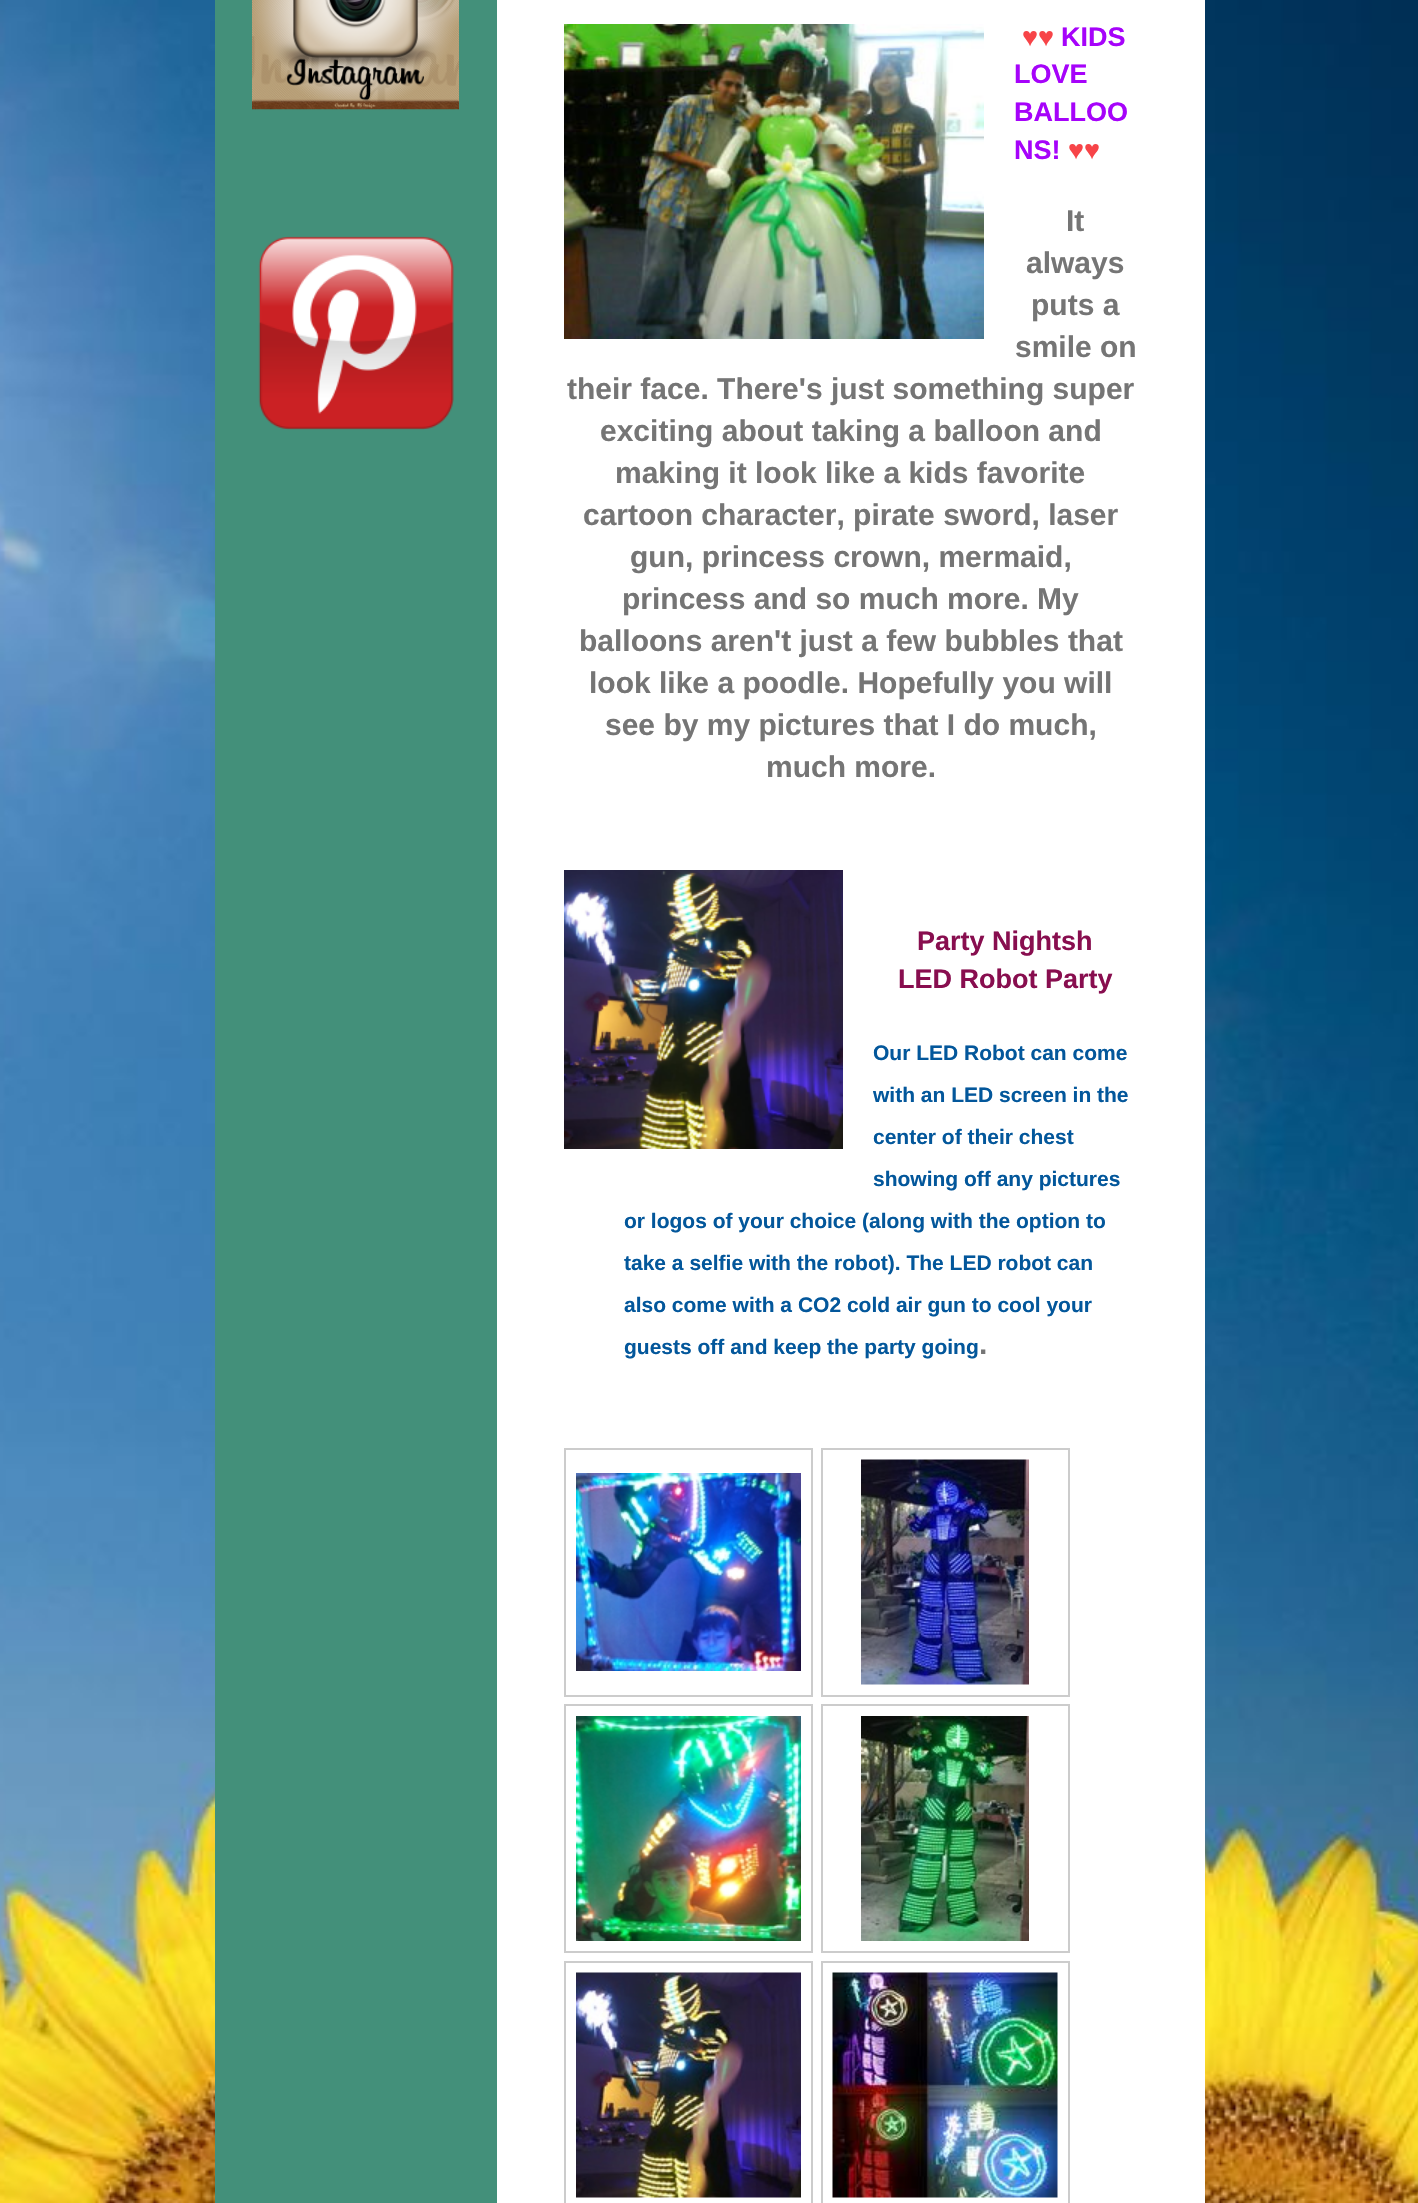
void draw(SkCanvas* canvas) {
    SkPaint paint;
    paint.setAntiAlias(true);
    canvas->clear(0xFFFFFFFF);
    canvas->drawImageRect(SkImages::DeferredFromEncodedData(SkData::MakeFromFileName("img1.png")), SkRect::MakeXYWH(0, 0, 1418, 2203), SkSamplingOptions());
    paint.setColor(0xFFFFFFFF);
    canvas->drawRect(SkRect::MakeXYWH(497, 0, 708, 2203), paint);
    paint.setColor(0xFF43907A);
    canvas->drawRect(SkRect::MakeXYWH(215, 0, 282, 2203), paint);
    canvas->drawImageRect(SkImages::DeferredFromEncodedData(SkData::MakeFromFileName("img2.png")), SkRect::MakeXYWH(252, 0, 207, 110), SkSamplingOptions());
    canvas->drawImageRect(SkImages::DeferredFromEncodedData(SkData::MakeFromFileName("img3.png")), SkRect::MakeXYWH(258, 236, 196, 194), SkSamplingOptions());
    canvas->drawImageRect(SkImages::DeferredFromEncodedData(SkData::MakeFromFileName("img4.png")), SkRect::MakeXYWH(564, 24, 420, 315), SkSamplingOptions());
    SkFont font1(fontMgr->matchFamilyStyle("Liberation Sans", SkFontStyle::Normal()), 27);
    font1.setSubpixel(true);
    paint.setColor(0xFFF74448);
    canvas->drawString("♥♥", 1022, 46, font1, paint);
    SkFont font2(fontMgr->matchFamilyStyle("Liberation Sans", SkFontStyle::Bold()), 27);
    font2.setSubpixel(true);
    paint.setColor(0xFFA603FA);
    canvas->drawString("KIDS", 1061, 46, font2, paint);
    canvas->drawString("LOVE", 1014, 83, font2, paint);
    canvas->drawString("BALLOO", 1014, 121, font2, paint);
    canvas->drawString("NS!", 1014, 159, font2, paint);
    paint.setColor(0xFFF74448);
    canvas->drawString("♥♥", 1068, 159, font1, paint);
    SkFont font3(fontMgr->matchFamilyStyle("Liberation Sans", SkFontStyle::Bold()), 30);
    font3.setSubpixel(true);
    paint.setColor(0xFF757575);
    canvas->drawString("It", 1066, 231, font3, paint);
    canvas->drawString("always", 1026, 273, font3, paint);
    canvas->drawString("puts a", 1031, 315, font3, paint);
    canvas->drawString("smile on", 1015, 357, font3, paint);
    canvas->drawString("their face. There's just something super", 567, 399, font3, paint);
    canvas->drawString("exciting about taking a balloon and", 600, 441, font3, paint);
    canvas->drawString("making it look like a kids favorite", 615, 483, font3, paint);
    canvas->drawString("cartoon character, pirate sword, laser", 583, 525, font3, paint);
    canvas->drawString("gun, princess crown, mermaid,", 630, 567, font3, paint);
    canvas->drawString("princess and so much more. My", 622, 609, font3, paint);
    canvas->drawString("balloons aren't just a few bubbles that", 579, 651, font3, paint);
    canvas->drawString("look like a poodle. Hopefully you will", 589, 693, font3, paint);
    canvas->drawString("see by my pictures that I do much,", 605, 735, font3, paint);
    canvas->drawString("much more.", 766, 777, font3, paint);
    canvas->drawImageRect(SkImages::DeferredFromEncodedData(SkData::MakeFromFileName("img5.png")), SkRect::MakeXYWH(564, 870, 279, 279), SkSamplingOptions());
    paint.setColor(0xFF880E4F);
    canvas->drawString("Party Nightsh", 917, 950, font2, paint);
    canvas->drawString("LED Robot Party", 898, 988, font2, paint);
    SkFont font4(fontMgr->matchFamilyStyle("Liberation Sans", SkFontStyle::Bold()), 21);
    font4.setSubpixel(true);
    paint.setColor(0xFF03579B);
    canvas->drawString("Our LED Robot can come", 873, 1060, font4, paint);
    canvas->drawString("with an LED screen in the", 873, 1102, font4, paint);
    canvas->drawString("center of their chest", 873, 1144, font4, paint);
    canvas->drawString("showing off any pictures", 873, 1186, font4, paint);
    canvas->drawString("or logos of your choice (along with the option to", 624, 1228, font4, paint);
    canvas->drawString("take a selfie with the robot). The LED robot can", 624, 1270, font4, paint);
    canvas->drawString("also come with a CO2 cold air gun to cool your", 624, 1312, font4, paint);
    canvas->drawString("guests off and keep the party going", 624, 1354, font4, paint);
    paint.setColor(0xFF757575);
    canvas->drawString(".", 979, 1354, font3, paint);
    paint.setStyle(SkPaint::kStroke_Style);
    paint.setStrokeWidth(2);
    paint.setColor(0xFFCCCCCC);
    canvas->drawRect(SkRect::MakeXYWH(565, 1449, 247, 247), paint);
    canvas->drawImageRect(SkImages::DeferredFromEncodedData(SkData::MakeFromFileName("img6.png")), SkRect::MakeXYWH(576, 1473, 225, 198), SkSamplingOptions());
    canvas->drawRect(SkRect::MakeXYWH(822, 1449, 247, 247), paint);
    canvas->drawImageRect(SkImages::DeferredFromEncodedData(SkData::MakeFromFileName("img7.png")), SkRect::MakeXYWH(861, 1459, 168, 226), SkSamplingOptions());
    canvas->drawRect(SkRect::MakeXYWH(565, 1705, 247, 247), paint);
    canvas->drawImageRect(SkImages::DeferredFromEncodedData(SkData::MakeFromFileName("img8.png")), SkRect::MakeXYWH(576, 1716, 225, 225), SkSamplingOptions());
    canvas->drawRect(SkRect::MakeXYWH(822, 1705, 247, 247), paint);
    canvas->drawImageRect(SkImages::DeferredFromEncodedData(SkData::MakeFromFileName("img9.png")), SkRect::MakeXYWH(861, 1716, 168, 225), SkSamplingOptions());
    canvas->drawRect(SkRect::MakeXYWH(565, 1962, 247, 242), paint);
    canvas->drawImageRect(SkImages::DeferredFromEncodedData(SkData::MakeFromFileName("img10.png")), SkRect::MakeXYWH(576, 1972, 225, 226), SkSamplingOptions());
    canvas->drawRect(SkRect::MakeXYWH(822, 1962, 247, 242), paint);
    canvas->drawImageRect(SkImages::DeferredFromEncodedData(SkData::MakeFromFileName("img11.png")), SkRect::MakeXYWH(832, 1972, 226, 226), SkSamplingOptions());
}
